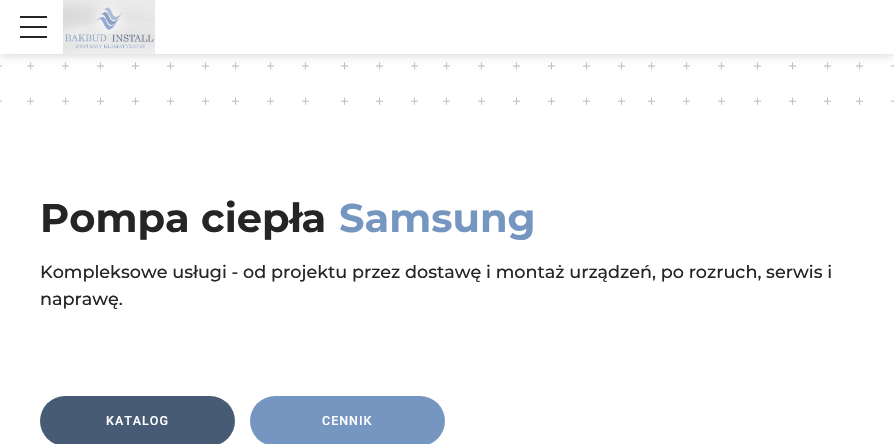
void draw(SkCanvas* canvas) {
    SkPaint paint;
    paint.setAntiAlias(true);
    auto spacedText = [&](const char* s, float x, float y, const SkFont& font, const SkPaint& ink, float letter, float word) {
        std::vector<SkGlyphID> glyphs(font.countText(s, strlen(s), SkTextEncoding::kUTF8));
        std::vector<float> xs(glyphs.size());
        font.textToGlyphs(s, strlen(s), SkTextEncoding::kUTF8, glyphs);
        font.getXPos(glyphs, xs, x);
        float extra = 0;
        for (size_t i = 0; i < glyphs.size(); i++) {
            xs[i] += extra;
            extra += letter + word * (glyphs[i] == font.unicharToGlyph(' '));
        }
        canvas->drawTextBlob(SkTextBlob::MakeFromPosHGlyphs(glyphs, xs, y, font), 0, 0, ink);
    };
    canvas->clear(0xFFFFFFFF);
    canvas->drawImageRect(SkImages::DeferredFromEncodedData(SkData::MakeFromFileName("img2.png")), SkRect::MakeXYWH(0, 62, 894, 43), SkSamplingOptions());
    paint.setColor(0x33000000);
    paint.setMaskFilter(SkMaskFilter::MakeBlur(kNormal_SkBlurStyle, 5));
    canvas->drawRect(SkRect::MakeXYWH(0, 0, 894, 54), paint);
    paint.setMaskFilter(nullptr);
    paint.setColor(0xFFFFFFFF);
    canvas->drawRect(SkRect::MakeXYWH(0, 0, 894, 54), paint);
    paint.setColor(0xFF252525);
    canvas->drawRect(SkRect::MakeXYWH(20, 16, 27, 2), paint);
    canvas->drawRect(SkRect::MakeXYWH(20, 26, 27, 2), paint);
    canvas->drawRect(SkRect::MakeXYWH(20, 36, 27, 2), paint);
    canvas->drawImageRect(SkImages::DeferredFromEncodedData(SkData::MakeFromFileName("img1.png")), SkRect::MakeXYWH(63, 0, 92, 54), SkSamplingOptions());
    SkFont font1(fontMgr->matchFamilyStyle("Montserrat", SkFontStyle::Bold()), 40);
    font1.setSubpixel(true);
    canvas->drawString("Pompa ciepła", 40, 232, font1, paint);
    paint.setColor(0xFF7696C2);
    canvas->drawString("Samsung", 339, 232, font1, paint);
    SkFont font2(fontMgr->matchFamilyStyle("Montserrat", SkFontStyle(500, SkFontStyle::kNormal_Width, SkFontStyle::kUpright_Slant)), 17.6f);
    font2.setSubpixel(true);
    paint.setColor(0xFF252525);
    canvas->drawString("Kompleksowe usługi - od projektu przez dostawę i montaż urządzeń, po rozruch, serwis i", 40, 278, font2, paint);
    canvas->drawString("naprawę.", 40, 305, font2, paint);
    paint.setColor(0xFF485B75);
    canvas->drawRoundRect(SkRect::MakeXYWH(40, 396, 195, 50), 25, 25, paint);
    SkFont font3(fontMgr->matchFamilyStyle("Roboto", SkFontStyle(500, SkFontStyle::kNormal_Width, SkFontStyle::kUpright_Slant)), 12.5f);
    font3.setSubpixel(true);
    paint.setColor(0xFFFFFFFF);
    spacedText("KATALOG", 106, 425, font3, paint, 1, 0);
    paint.setColor(0xFF7696C2);
    canvas->drawRoundRect(SkRect::MakeXYWH(250, 396, 195, 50), 25, 25, paint);
    paint.setColor(0xFFFFFFFF);
    spacedText("CENNIK", 322, 425, font3, paint, 1, 0);
}
